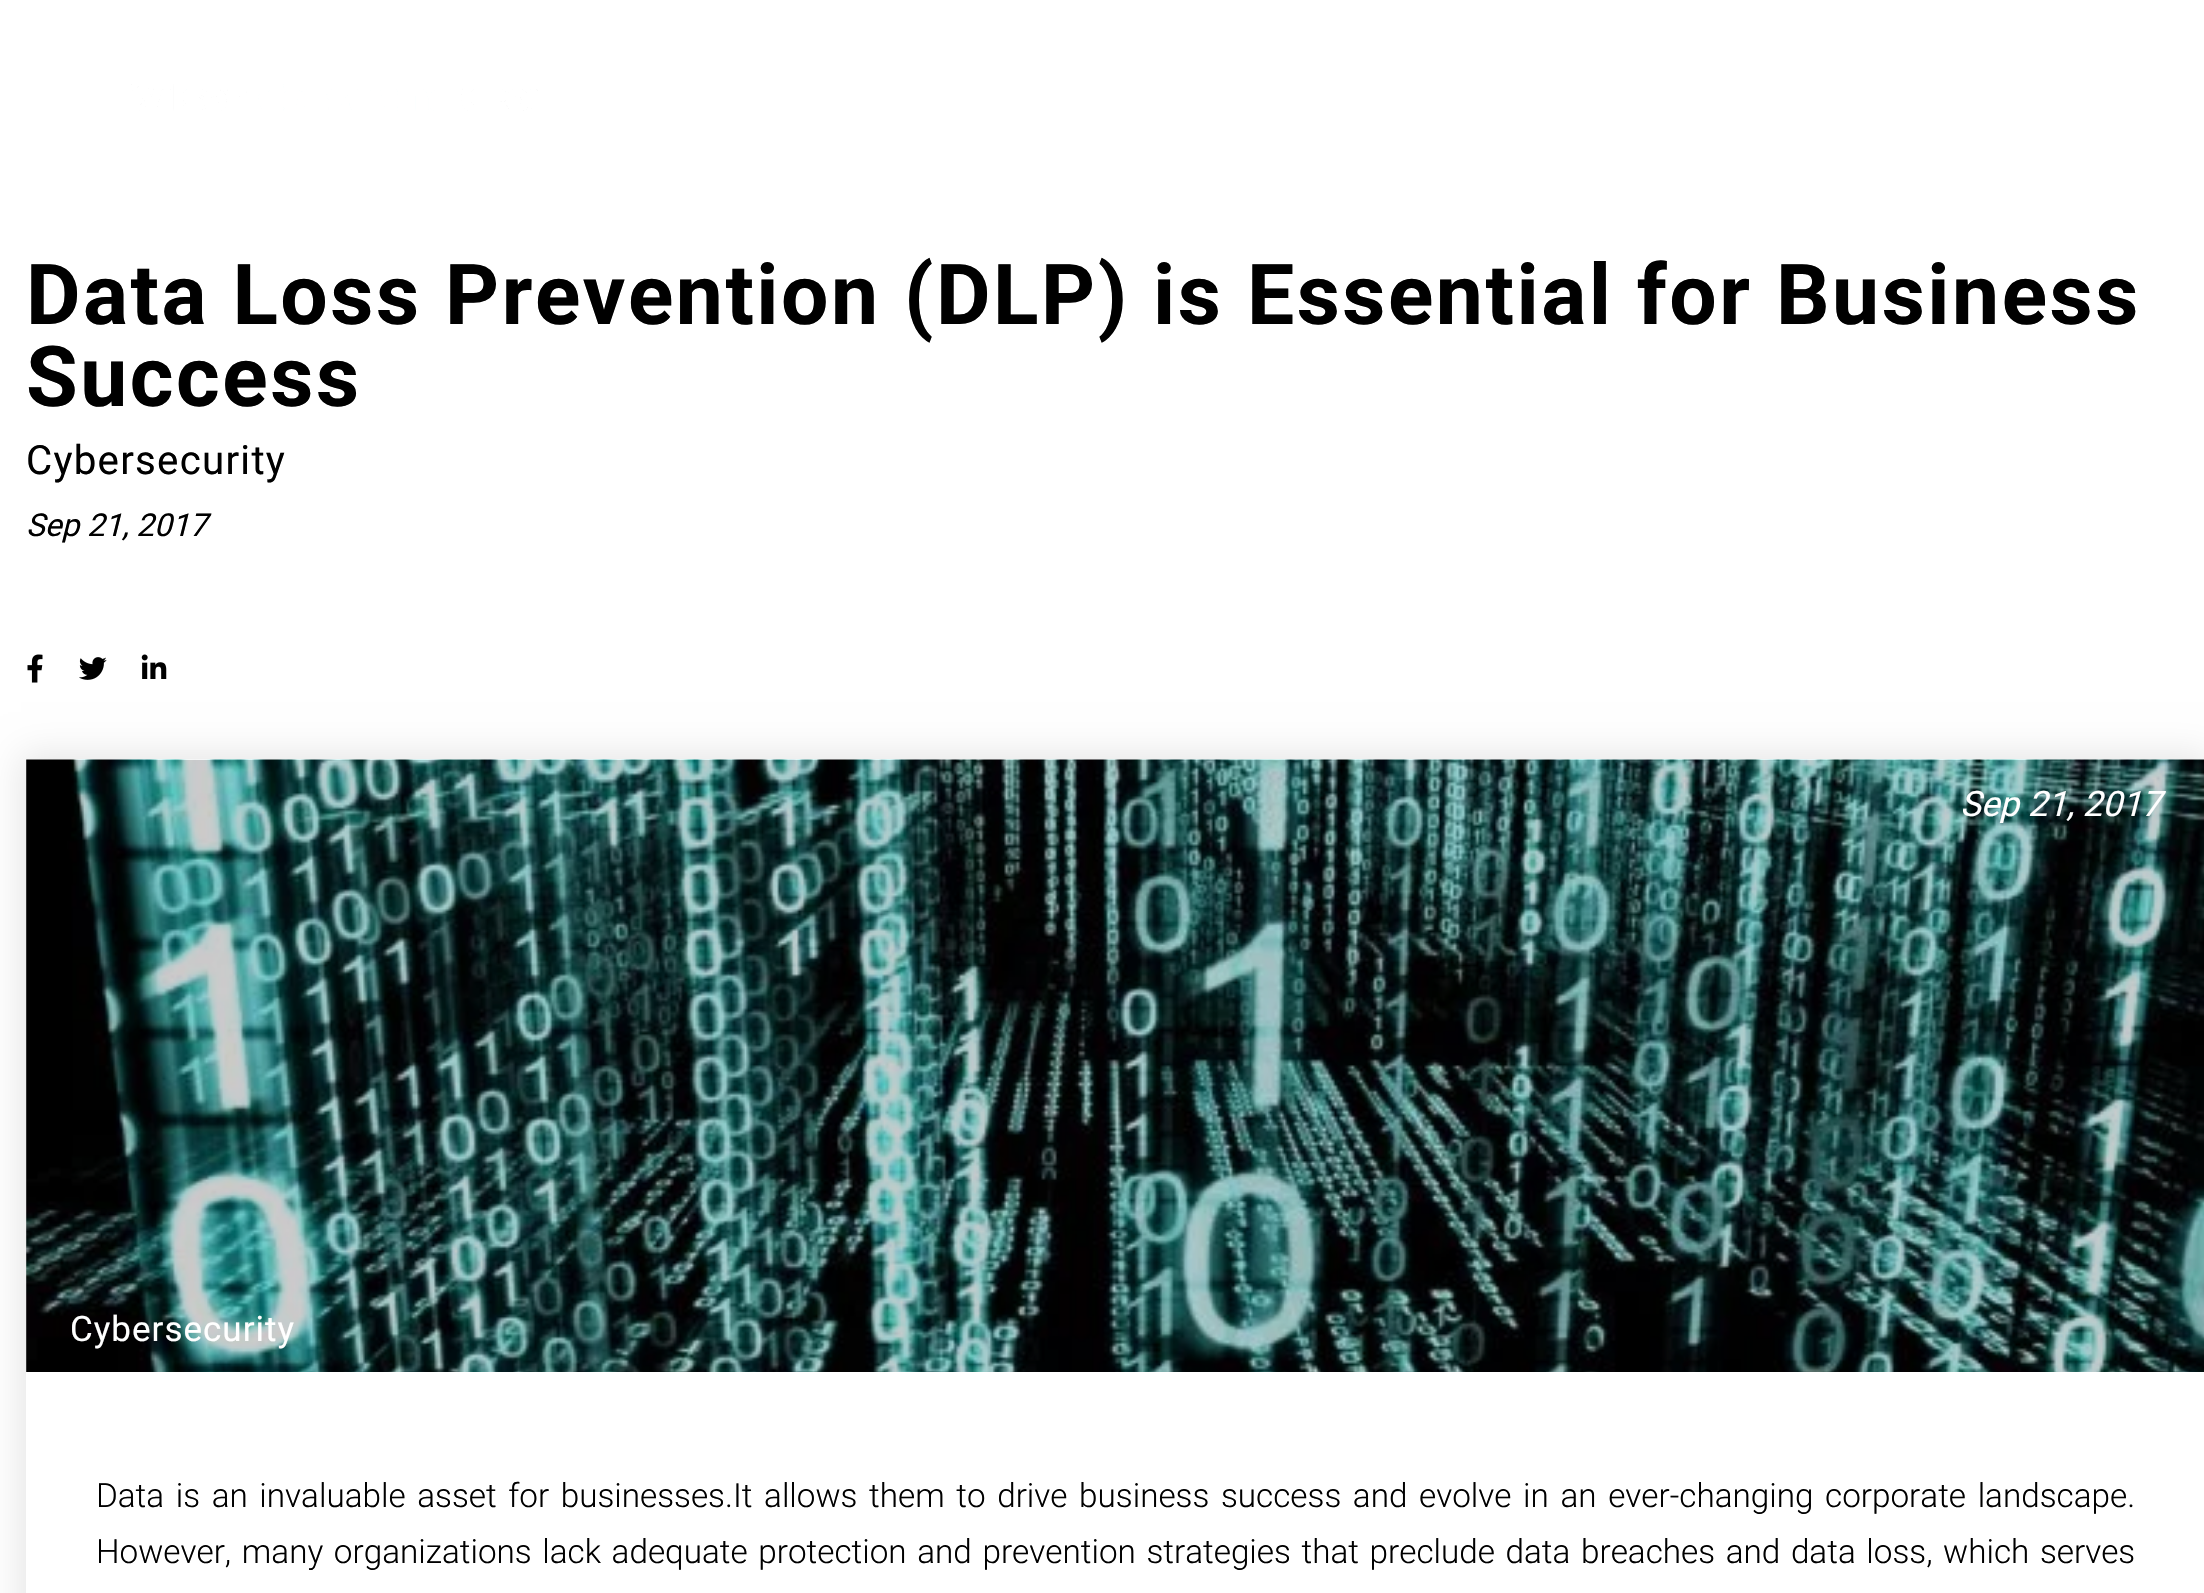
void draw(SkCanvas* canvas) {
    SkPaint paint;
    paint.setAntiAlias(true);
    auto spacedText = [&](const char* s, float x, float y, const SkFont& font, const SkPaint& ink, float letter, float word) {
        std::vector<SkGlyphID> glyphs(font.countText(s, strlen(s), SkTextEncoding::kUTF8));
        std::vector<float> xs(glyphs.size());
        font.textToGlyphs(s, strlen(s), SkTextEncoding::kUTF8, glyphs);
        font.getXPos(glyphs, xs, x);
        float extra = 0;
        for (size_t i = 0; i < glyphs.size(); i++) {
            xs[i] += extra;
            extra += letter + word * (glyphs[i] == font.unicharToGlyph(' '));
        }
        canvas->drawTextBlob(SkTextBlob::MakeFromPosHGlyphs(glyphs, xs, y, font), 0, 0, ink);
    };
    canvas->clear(0xFFFFFFFF);
    canvas->drawImageRect(SkImages::DeferredFromEncodedData(SkData::MakeFromFileName("img1.png")), SkRect::MakeXYWH(131, 84, 407, 27), SkSamplingOptions());
    SkFont font1(fontMgr->matchFamilyStyle("Roboto", SkFontStyle::Bold()), 84);
    font1.setSubpixel(true);
    paint.setColor(0xFF000000);
    spacedText("Data Loss Prevention (DLP) is Essential for Business", 26, 324, font1, paint, 2.52f, 0);
    spacedText("Success", 26, 406, font1, paint, 2.52f, 0);
    SkFont font2(fontMgr->matchFamilyStyle("Roboto", SkFontStyle::Normal()), 40.25f);
    font2.setSubpixel(true);
    spacedText("Cybersecurity", 26, 474, font2, paint, 1.25f, 0);
    SkFont font3(fontMgr->matchFamilyStyle("Roboto", SkFontStyle::Italic()), 31.5f);
    font3.setSubpixel(true);
    canvas->drawString("Sep 21, 2017", 26, 536, font3, paint);
    canvas->drawImageRect(SkImages::DeferredFromEncodedData(SkData::MakeFromFileName("img2.png")), SkRect::MakeXYWH(27, 654, 16, 29), SkSamplingOptions());
    canvas->drawImageRect(SkImages::DeferredFromEncodedData(SkData::MakeFromFileName("img3.png")), SkRect::MakeXYWH(79, 657, 28, 23), SkSamplingOptions());
    canvas->drawImageRect(SkImages::DeferredFromEncodedData(SkData::MakeFromFileName("img4.png")), SkRect::MakeXYWH(141, 654, 26, 25), SkSamplingOptions());
    paint.setColor(0x1A000000);
    paint.setMaskFilter(SkMaskFilter::MakeBlur(kNormal_SkBlurStyle, 17.5f));
    canvas->drawRect(SkRect::MakeXYWH(21, 754, 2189, 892), paint);
    paint.setMaskFilter(nullptr);
    paint.setColor(0xFFFFFFFF);
    canvas->drawRect(SkRect::MakeXYWH(26, 760, 2178, 833), paint);
    canvas->drawImageRect(SkImages::DeferredFromEncodedData(SkData::MakeFromFileName("img5.png")), SkRect::MakeXYWH(26, 759, 2178, 613), SkSamplingOptions());
    paint.setColor(0x33000000);
    canvas->drawRect(SkRect::MakeXYWH(26, 760, 2178, 612), paint);
    SkFont font4(fontMgr->matchFamilyStyle("Roboto", SkFontStyle::Italic()), 35);
    font4.setSubpixel(true);
    paint.setColor(0xFFFFFFFF);
    canvas->drawString("Sep 21, 2017", 1960, 816, font4, paint);
    SkFont font5(fontMgr->matchFamilyStyle("Roboto", SkFontStyle::Normal()), 35);
    font5.setSubpixel(true);
    spacedText("Cybersecurity", 70, 1341, font5, paint, 1, 0);
    SkFont font6(fontMgr->matchFamilyStyle("Roboto", SkFontStyle(300, SkFontStyle::kNormal_Width, SkFontStyle::kUpright_Slant)), 33.25f);
    font6.setSubpixel(true);
    paint.setColor(0xFF000000);
    spacedText("Data is an invaluable asset for businesses.It allows them to drive business success and evolve in an ever-changing corporate landscape.", 96, 1507, font6, paint, 0, 3.5f);
    spacedText("However, many organizations lack adequate protection and prevention strategies that preclude data breaches and data loss, which serves", 96, 1563, font6, paint, 0, 2.5f);
}
